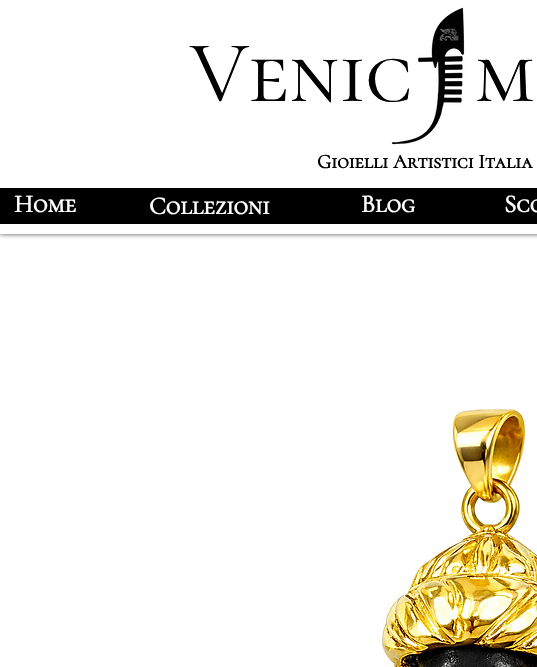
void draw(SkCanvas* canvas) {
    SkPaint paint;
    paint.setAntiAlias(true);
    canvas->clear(0xFFFFFFFF);
    canvas->save();
    canvas->clipRect(SkRect::MakeXYWH(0, 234, 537, 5));
    paint.setColor(0xB3000000);
    paint.setMaskFilter(SkMaskFilter::MakeBlur(kNormal_SkBlurStyle, 2.5f));
    canvas->drawRect(SkRect::MakeXYWH(0, 0, 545, 234), paint);
    paint.setMaskFilter(nullptr);
    canvas->restore();
    SkFont font1(fontMgr->matchFamilyStyle("Cormorant SC", SkFontStyle::Normal()), 88);
    font1.setSubpixel(true);
    paint.setColor(0xFF000000);
    canvas->drawString("Venic   m", 190, 101, font1, paint);
    canvas->drawImageRect(SkImages::DeferredFromEncodedData(SkData::MakeFromFileName("img1.png")), SkRect::MakeXYWH(391, 7, 74, 138), SkSamplingOptions());
    SkFont font2(fontMgr->matchFamilyStyle("Cormorant SC", SkFontStyle::Bold()), 20);
    font2.setSubpixel(true);
    canvas->drawString("Gioielli Artistici Italia", 317, 168, font2, paint);
    canvas->drawRect(SkRect::MakeXYWH(0, 188, 537, 36), paint);
    SkFont font3(fontMgr->matchFamilyStyle("Cormorant SC", SkFontStyle::Bold()), 25);
    font3.setSubpixel(true);
    paint.setColor(0xFFFFFFFF);
    canvas->drawString("Home", 14, 212, font3, paint);
    canvas->drawString("Collezioni", 149, 214, font3, paint);
    canvas->drawString("Blog", 361, 212, font3, paint);
    canvas->drawString("Sco", 504, 212, font3, paint);
    canvas->drawImageRect(SkImages::DeferredFromEncodedData(SkData::MakeFromFileName("img2.png")), SkRect::MakeXYWH(382, 409, 155, 258), SkSamplingOptions());
}
